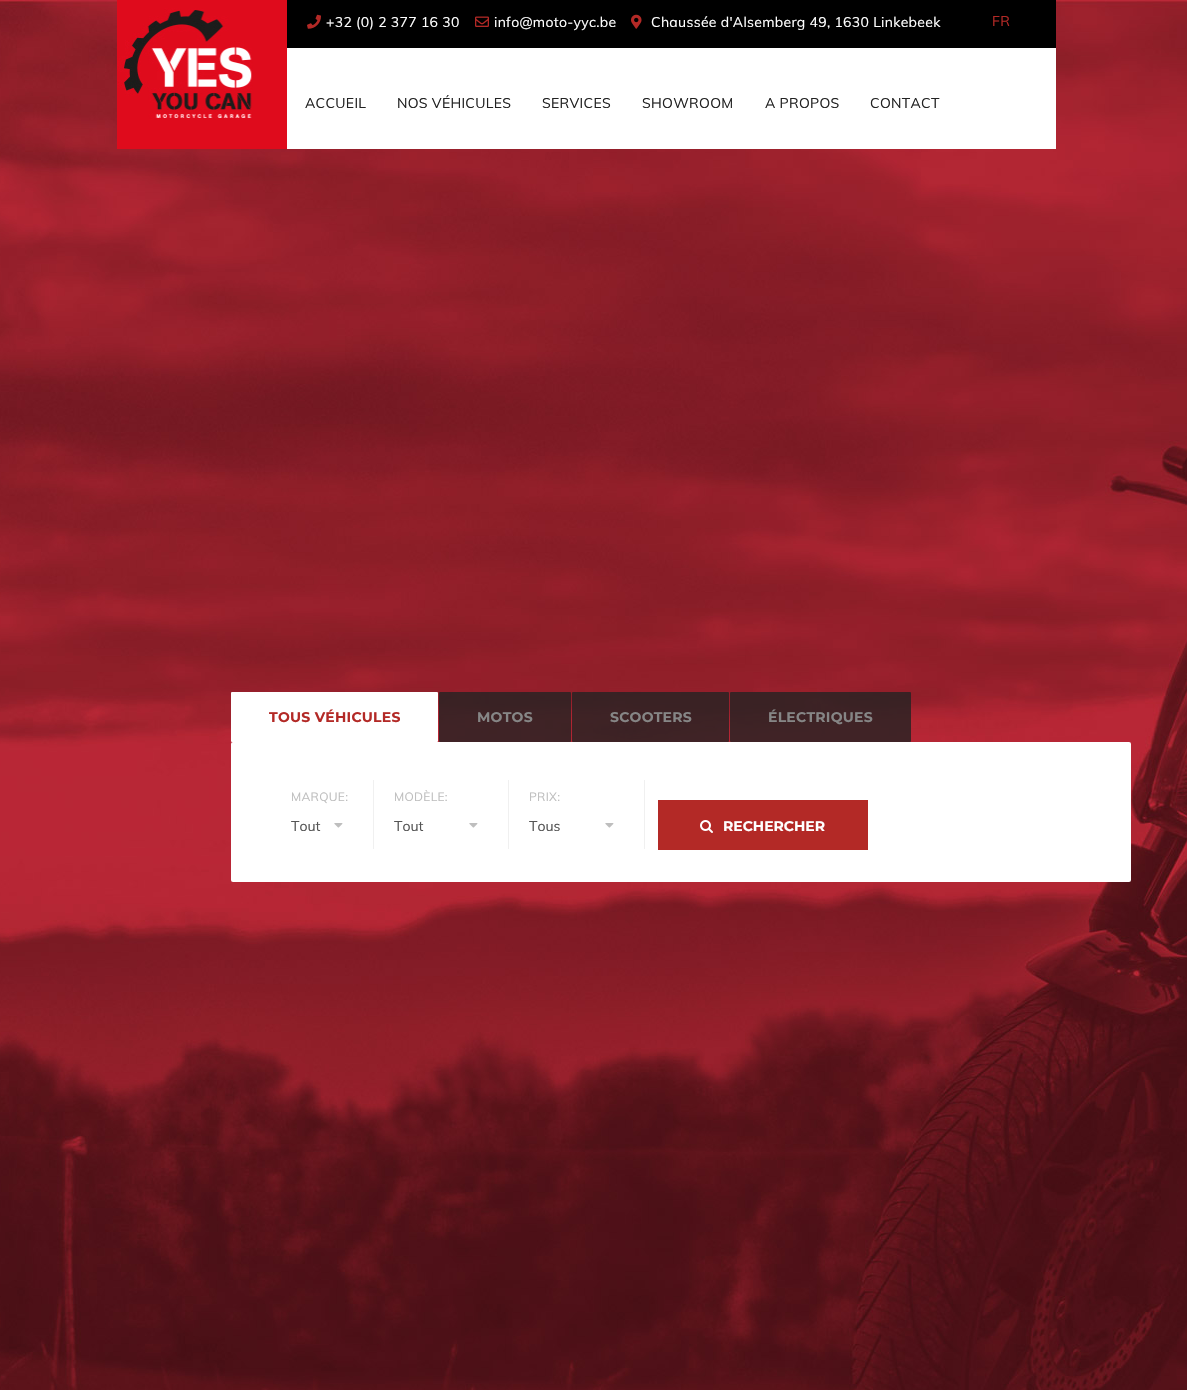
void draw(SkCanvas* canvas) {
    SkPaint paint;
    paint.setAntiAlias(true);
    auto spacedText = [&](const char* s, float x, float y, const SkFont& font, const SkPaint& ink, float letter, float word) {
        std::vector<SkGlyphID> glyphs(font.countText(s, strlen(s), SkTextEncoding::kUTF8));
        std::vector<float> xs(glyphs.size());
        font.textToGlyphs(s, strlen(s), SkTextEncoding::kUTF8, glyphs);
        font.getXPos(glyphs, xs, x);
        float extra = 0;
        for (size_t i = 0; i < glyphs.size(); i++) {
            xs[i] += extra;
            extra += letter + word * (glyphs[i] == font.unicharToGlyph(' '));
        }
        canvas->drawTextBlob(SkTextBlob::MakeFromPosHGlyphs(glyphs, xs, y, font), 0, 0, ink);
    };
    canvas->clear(0xFFFFFFFF);
    canvas->drawImageRect(SkImages::DeferredFromEncodedData(SkData::MakeFromFileName("img5.png")), SkRect::MakeXYWH(0, 0, 1187, 1390), SkSamplingOptions());
    canvas->drawImageRect(SkImages::DeferredFromEncodedData(SkData::MakeFromFileName("img1.png")), SkRect::MakeXYWH(117, 0, 170, 149), SkSamplingOptions());
    paint.setColor(0xFF000000);
    canvas->drawRect(SkRect::MakeXYWH(287, 0, 769, 48), paint);
    canvas->drawImageRect(SkImages::DeferredFromEncodedData(SkData::MakeFromFileName("img2.png")), SkRect::MakeXYWH(307, 14, 14, 15), SkSamplingOptions());
    SkFont font1(fontMgr->matchFamilyStyle("Muli", SkFontStyle::Normal()), 14);
    font1.setSubpixel(true);
    paint.setColor(0xFFFFFFFF);
    spacedText("+32 (0) 2 377 16 30", 326, 27, font1, paint, 0.3f, 0);
    canvas->drawImageRect(SkImages::DeferredFromEncodedData(SkData::MakeFromFileName("img3.png")), SkRect::MakeXYWH(475, 16, 14, 11), SkSamplingOptions());
    spacedText("info@moto-yyc.be", 494, 27, font1, paint, 0.3f, 0);
    canvas->drawImageRect(SkImages::DeferredFromEncodedData(SkData::MakeFromFileName("img4.png")), SkRect::MakeXYWH(631, 14, 11, 15), SkSamplingOptions());
    spacedText("Chaussée d'Alsemberg 49, 1630 Linkebeek", 651, 27, font1, paint, 0.3f, 0);
    paint.setColor(0xFFB32926);
    spacedText("FR", 992, 26, font1, paint, 0.3f, 0);
    paint.setColor(0xFFFFFFFF);
    canvas->drawRect(SkRect::MakeXYWH(287, 48, 769, 101), paint);
    paint.setColor(0xFF222222);
    spacedText("ACCUEIL", 305, 108, font1, paint, 0.3f, 0);
    spacedText("NOS VÉHICULES", 397, 108, font1, paint, 0.3f, 0);
    spacedText("SERVICES", 542, 108, font1, paint, 0.3f, 0);
    spacedText("SHOWROOM", 642, 108, font1, paint, 0.3f, 0);
    spacedText("A PROPOS", 765, 108, font1, paint, 0.3f, 0);
    spacedText("CONTACT", 870, 108, font1, paint, 0.3f, 0);
    paint.setColor(0xFFFFFFFF);
    canvas->drawRoundRect(SkRect::MakeXYWH(231, 692, 207, 50), 1, 1, paint);
    SkFont font2(fontMgr->matchFamilyStyle("Montserrat", SkFontStyle::Bold()), 14);
    font2.setSubpixel(true);
    paint.setColor(0xFFB32926);
    spacedText("TOUS VÉHICULES", 269, 722, font2, paint, 0.25f, 0);
    paint.setColor(0xCC222222);
    canvas->drawRoundRect(SkRect::MakeXYWH(439, 692, 132, 50), 1, 1, paint);
    paint.setColor(0xFF868686);
    spacedText("MOTOS", 477, 722, font2, paint, 0.25f, 0);
    paint.setColor(0xCC222222);
    canvas->drawRoundRect(SkRect::MakeXYWH(572, 692, 157, 50), 1, 1, paint);
    paint.setColor(0xFF868686);
    spacedText("SCOOTERS", 610, 722, font2, paint, 0.25f, 0);
    paint.setColor(0xCC222222);
    canvas->drawRoundRect(SkRect::MakeXYWH(730, 692, 181, 50), 1, 1, paint);
    paint.setColor(0xFF868686);
    spacedText("ÉLECTRIQUES", 768, 722, font2, paint, 0.25f, 0);
    paint.setColor(0xFFFFFFFF);
    canvas->drawRoundRect(SkRect::MakeXYWH(231, 742, 900, 140), 2, 2, paint);
    paint.setColor(0xFFF0F0F0);
    canvas->drawRect(SkRect::MakeXYWH(373, 780, 1, 69), paint);
    SkFont font3(fontMgr->matchFamilyStyle("Muli", SkFontStyle::Normal()), 12);
    font3.setSubpixel(true);
    paint.setColor(0xFFBEBEBE);
    spacedText("MARQUE:", 291, 801, font3, paint, 0.3f, 0);
    paint.setColor(0xFF555555);
    canvas->drawString("Tout", 291, 831, font1, paint);
    canvas->drawImageRect(SkImages::DeferredFromEncodedData(SkData::MakeFromFileName("img6.png")), SkRect::MakeXYWH(334, 823, 9, 5), SkSamplingOptions());
    paint.setColor(0xFFF0F0F0);
    canvas->drawRect(SkRect::MakeXYWH(508, 780, 1, 69), paint);
    paint.setColor(0xFFBEBEBE);
    spacedText("MODÈLE:", 394, 801, font3, paint, 0.3f, 0);
    paint.setColor(0xFF555555);
    canvas->drawString("Tout", 394, 831, font1, paint);
    canvas->drawImageRect(SkImages::DeferredFromEncodedData(SkData::MakeFromFileName("img6.png")), SkRect::MakeXYWH(469, 823, 9, 5), SkSamplingOptions());
    paint.setColor(0xFFF0F0F0);
    canvas->drawRect(SkRect::MakeXYWH(644, 780, 1, 69), paint);
    paint.setColor(0xFFBEBEBE);
    spacedText("PRIX:", 529, 801, font3, paint, 0.3f, 0);
    paint.setColor(0xFF555555);
    canvas->drawString("Tous", 529, 831, font1, paint);
    canvas->drawImageRect(SkImages::DeferredFromEncodedData(SkData::MakeFromFileName("img6.png")), SkRect::MakeXYWH(605, 823, 9, 5), SkSamplingOptions());
    paint.setColor(0xFFB32926);
    canvas->drawRect(SkRect::MakeXYWH(658, 800, 210, 50), paint);
    canvas->drawImageRect(SkImages::DeferredFromEncodedData(SkData::MakeFromFileName("img7.png")), SkRect::MakeXYWH(700, 820, 13, 13), SkSamplingOptions());
    paint.setColor(0xFFFFFFFF);
    canvas->drawString("RECHERCHER", 723, 831, font2, paint);
}
